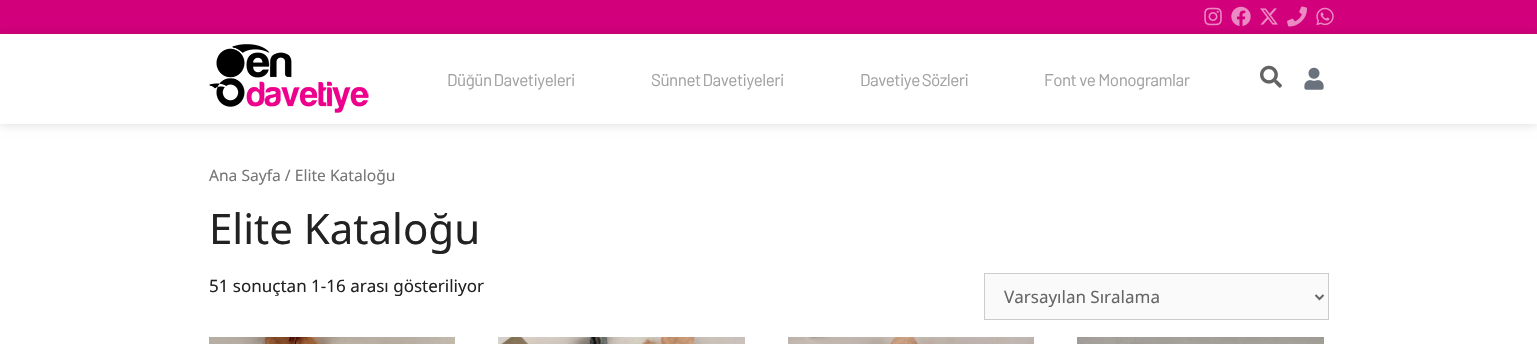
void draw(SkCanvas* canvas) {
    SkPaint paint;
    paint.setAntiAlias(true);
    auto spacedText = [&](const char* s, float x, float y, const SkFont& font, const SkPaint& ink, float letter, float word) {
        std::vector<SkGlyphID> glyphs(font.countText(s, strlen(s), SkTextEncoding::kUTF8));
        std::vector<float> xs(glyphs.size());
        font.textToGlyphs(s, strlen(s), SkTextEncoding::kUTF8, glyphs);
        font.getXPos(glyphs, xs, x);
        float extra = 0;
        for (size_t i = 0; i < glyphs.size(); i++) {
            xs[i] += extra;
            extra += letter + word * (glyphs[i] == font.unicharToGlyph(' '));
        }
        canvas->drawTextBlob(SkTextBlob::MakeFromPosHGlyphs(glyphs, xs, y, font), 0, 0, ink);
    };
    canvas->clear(0xFFFFFFFF);
    paint.setColor(0xFFD3007C);
    canvas->drawRect(SkRect::MakeXYWH(0, 0, 1537, 34), paint);
    canvas->drawImageRect(SkImages::DeferredFromEncodedData(SkData::MakeFromFileName("img1.png")), SkRect::MakeXYWH(1204, 7, 18, 19), SkSamplingOptions());
    canvas->drawImageRect(SkImages::DeferredFromEncodedData(SkData::MakeFromFileName("img2.png")), SkRect::MakeXYWH(1231, 6, 20, 20), SkSamplingOptions());
    canvas->drawImageRect(SkImages::DeferredFromEncodedData(SkData::MakeFromFileName("img3.png")), SkRect::MakeXYWH(1260, 8, 18, 17), SkSamplingOptions());
    canvas->drawImageRect(SkImages::DeferredFromEncodedData(SkData::MakeFromFileName("img4.png")), SkRect::MakeXYWH(1287, 6, 20, 21), SkSamplingOptions());
    canvas->drawImageRect(SkImages::DeferredFromEncodedData(SkData::MakeFromFileName("img5.png")), SkRect::MakeXYWH(1316, 7, 18, 19), SkSamplingOptions());
    canvas->save();
    canvas->clipPath(SkPathBuilder(SkPathFillType::kEvenOdd).moveTo(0, 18).lineTo(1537, 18).lineTo(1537, 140).lineTo(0, 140).close().moveTo(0, 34).lineTo(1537, 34).lineTo(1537, 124).lineTo(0, 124).close().detach(), true);
    paint.setColor(0x26000000);
    paint.setMaskFilter(SkMaskFilter::MakeBlur(kNormal_SkBlurStyle, 5));
    canvas->drawRect(SkRect::MakeXYWH(0, 34, 1537, 90), paint);
    paint.setMaskFilter(nullptr);
    canvas->restore();
    canvas->drawImageRect(SkImages::DeferredFromEncodedData(SkData::MakeFromFileName("img6.png")), SkRect::MakeXYWH(209, 44, 160, 69), SkSamplingOptions());
    SkFont font1(fontMgr->matchFamilyStyle("Barlow", SkFontStyle::Normal()), 17);
    font1.setSubpixel(true);
    paint.setColor(0xFFA2A1A1);
    spacedText("Düğün Davetiyeleri", 447, 86, font1, paint, -0.5f, -1);
    spacedText("Sünnet Davetiyeleri", 651, 86, font1, paint, -0.5f, -1);
    spacedText("Davetiye Sözleri", 860, 86, font1, paint, -0.5f, -1);
    spacedText("Font ve Monogramlar", 1044, 86, font1, paint, -0.5f, 0);
    canvas->drawImageRect(SkImages::DeferredFromEncodedData(SkData::MakeFromFileName("img7.png")), SkRect::MakeXYWH(1260, 65, 22, 23), SkSamplingOptions());
    canvas->drawImageRect(SkImages::DeferredFromEncodedData(SkData::MakeFromFileName("img8.png")), SkRect::MakeXYWH(1304, 67, 20, 23), SkSamplingOptions());
    SkFont font2(fontMgr->matchFamilyStyle("Noto Sans", SkFontStyle::Normal()), 15.6f);
    font2.setSubpixel(true);
    paint.setColor(0xFF767676);
    canvas->drawString("Ana Sayfa / Elite Kataloğu", 209, 181, font2, paint);
    SkFont font3(fontMgr->matchFamilyStyle("Noto Sans", SkFontStyle::Normal()), 42);
    font3.setSubpixel(true);
    paint.setColor(0xFF222222);
    canvas->drawString("Elite Kataloğu", 209, 244, font3, paint);
    SkFont font4(fontMgr->matchFamilyStyle("Noto Sans", SkFontStyle::Normal()), 17);
    font4.setSubpixel(true);
    canvas->drawString("51 sonuçtan 1-16 arası gösteriliyor", 209, 292, font4, paint);
    paint.setColor(0xFFFAFAFA);
    canvas->drawRect(SkRect::MakeXYWH(984.5f, 273.5f, 344, 46), paint);
    paint.setStyle(SkPaint::kStroke_Style);
    paint.setStrokeWidth(1);
    paint.setColor(0xFFCCCCCC);
    canvas->drawRect(SkRect::MakeXYWH(984.5f, 273.5f, 344, 46), paint);
    paint.setStrokeWidth(2);
    paint.setColor(0xFF666666);
    canvas->drawPath(SkPathBuilder().moveTo(1315.5f, 295).lineTo(1319.5f, 299).lineTo(1323.5f, 295).detach(), paint);
    paint.setStyle(SkPaint::kFill_Style);
    canvas->drawString("Varsayılan Sıralama", 1004, 303, font4, paint);
    canvas->drawImageRect(SkImages::DeferredFromEncodedData(SkData::MakeFromFileName("img9.png")), SkRect::MakeXYWH(209, 337, 246, 7), SkSamplingOptions());
    canvas->drawImageRect(SkImages::DeferredFromEncodedData(SkData::MakeFromFileName("img10.png")), SkRect::MakeXYWH(498, 337, 247, 7), SkSamplingOptions());
    canvas->drawImageRect(SkImages::DeferredFromEncodedData(SkData::MakeFromFileName("img11.png")), SkRect::MakeXYWH(788, 337, 246, 7), SkSamplingOptions());
    canvas->drawImageRect(SkImages::DeferredFromEncodedData(SkData::MakeFromFileName("img12.png")), SkRect::MakeXYWH(1077, 337, 247, 7), SkSamplingOptions());
}
